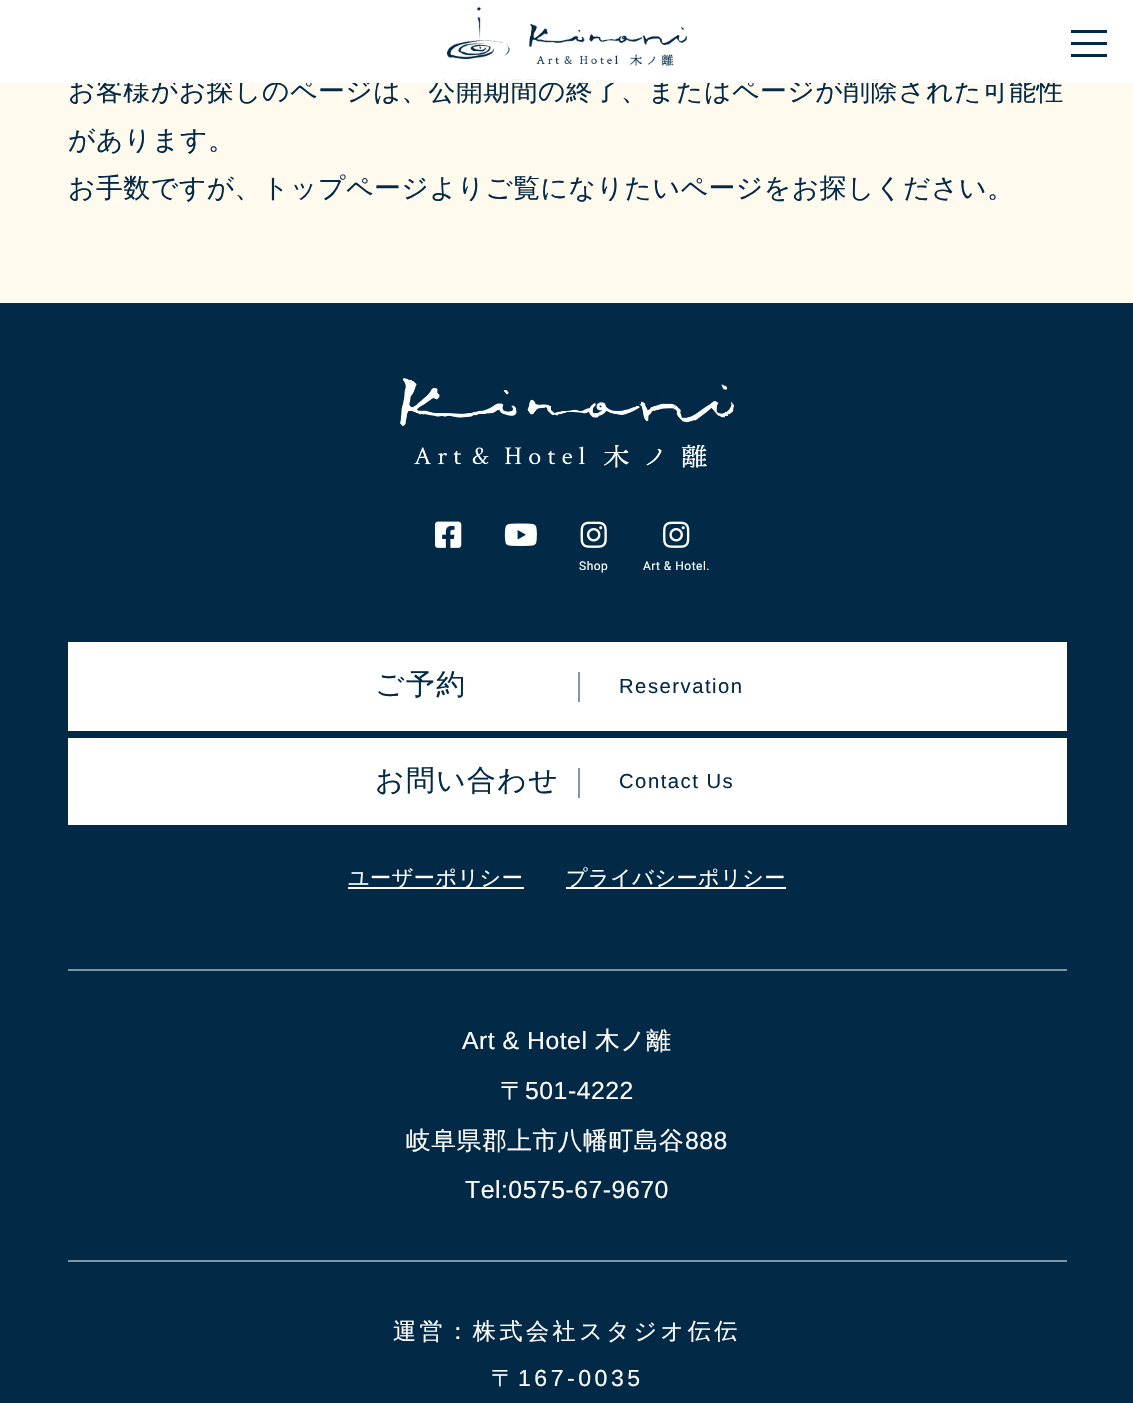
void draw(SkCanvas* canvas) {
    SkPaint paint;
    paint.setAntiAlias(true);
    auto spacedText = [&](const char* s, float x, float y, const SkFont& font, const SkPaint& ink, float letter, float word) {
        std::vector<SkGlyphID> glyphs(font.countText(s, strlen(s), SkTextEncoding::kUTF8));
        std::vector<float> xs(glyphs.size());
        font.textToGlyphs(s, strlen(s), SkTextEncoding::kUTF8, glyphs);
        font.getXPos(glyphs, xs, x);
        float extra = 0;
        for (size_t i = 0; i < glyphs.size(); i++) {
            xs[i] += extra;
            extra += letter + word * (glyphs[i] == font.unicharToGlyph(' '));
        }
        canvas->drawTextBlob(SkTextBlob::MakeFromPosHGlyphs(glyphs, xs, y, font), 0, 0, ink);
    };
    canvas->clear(0xFFFFFAEE);
    SkFont font1(fontMgr->matchFamilyStyle("WenQuanYi Zen Hei", SkFontStyle(500, SkFontStyle::kNormal_Width, SkFontStyle::kUpright_Slant)), 26.85f);
    font1.setSubpixel(true);
    paint.setColor(0xFF022946);
    spacedText("お客様がお探しのページは、公開期間の終了、またはページが削除された可能性", 68, 100, font1, paint, 0.5f, 0);
    paint.setColor(0xF2FFFFFF);
    canvas->drawRect(SkRect::MakeXYWH(0, 0, 1133, 83), paint);
    canvas->drawImageRect(SkImages::DeferredFromEncodedData(SkData::MakeFromFileName("img1.png")), SkRect::MakeXYWH(447, 7, 240, 59), SkSamplingOptions());
    paint.setColor(0xFF022946);
    canvas->drawRect(SkRect::MakeXYWH(1071, 30, 36, 3), paint);
    canvas->drawRect(SkRect::MakeXYWH(1071, 42, 36, 3), paint);
    canvas->drawRect(SkRect::MakeXYWH(1071, 54, 36, 3), paint);
    spacedText("があります。", 68, 149, font1, paint, 0.5f, 0);
    spacedText("お手数ですが、トップページよりご覧になりたいページをお探しください。", 68, 197, font1, paint, 0.5f, 0);
    canvas->drawRect(SkRect::MakeXYWH(0, 303, 1133, 1100), paint);
    canvas->drawImageRect(SkImages::DeferredFromEncodedData(SkData::MakeFromFileName("img2.png")), SkRect::MakeXYWH(400, 378, 334, 90), SkSamplingOptions());
    canvas->drawImageRect(SkImages::DeferredFromEncodedData(SkData::MakeFromFileName("img3.png")), SkRect::MakeXYWH(435, 521, 27, 27), SkSamplingOptions());
    canvas->drawImageRect(SkImages::DeferredFromEncodedData(SkData::MakeFromFileName("img4.png")), SkRect::MakeXYWH(504, 523, 33, 23), SkSamplingOptions());
    canvas->drawImageRect(SkImages::DeferredFromEncodedData(SkData::MakeFromFileName("img5.png")), SkRect::MakeXYWH(580, 521, 27, 27), SkSamplingOptions());
    SkFont font2(fontMgr->matchFamilyStyle("Roboto", SkFontStyle::Normal()), 12);
    font2.setSubpixel(true);
    paint.setColor(0xFFFFFFFF);
    spacedText("Shop", 579, 570, font2, paint, 0.5f, 0);
    canvas->drawImageRect(SkImages::DeferredFromEncodedData(SkData::MakeFromFileName("img6.png")), SkRect::MakeXYWH(663, 521, 27, 27), SkSamplingOptions());
    spacedText("Art & Hotel.", 643, 570, font2, paint, 0.5f, 0);
    canvas->drawRect(SkRect::MakeXYWH(68, 642, 999, 89), paint);
    SkFont font3(fontMgr->matchFamilyStyle("WenQuanYi Zen Hei", SkFontStyle(500, SkFontStyle::kNormal_Width, SkFontStyle::kUpright_Slant)), 28.75f);
    font3.setSubpixel(true);
    paint.setColor(0xFF022946);
    spacedText("ご予約", 375, 694, font3, paint, 1.5f, 0);
    paint.setColor(0xFF8194A3);
    canvas->drawRect(SkRect::MakeXYWH(578, 672, 2, 30), paint);
    SkFont font4(fontMgr->matchFamilyStyle("Liberation Sans", SkFontStyle::Normal()), 20.25f);
    font4.setSubpixel(true);
    paint.setColor(0xFF022946);
    spacedText("Reservation", 619, 693, font4, paint, 1.5f, 0);
    paint.setColor(0xFFFFFFFF);
    canvas->drawRect(SkRect::MakeXYWH(68, 738, 999, 87), paint);
    paint.setColor(0xFF022946);
    spacedText("お問い合わせ", 375, 790, font3, paint, 1.5f, 0);
    paint.setColor(0xFF8194A3);
    canvas->drawRect(SkRect::MakeXYWH(578, 768, 2, 30), paint);
    paint.setColor(0xFF022946);
    spacedText("Contact Us", 619, 788, font4, paint, 1.5f, 0);
    paint.setColor(0xFFFFFFFF);
    canvas->drawRect(SkRect::MakeXYWH(348, 887, 176, 2), paint);
    SkFont font5(fontMgr->matchFamilyStyle("WenQuanYi Zen Hei", SkFontStyle(500, SkFontStyle::kNormal_Width, SkFontStyle::kUpright_Slant)), 21.1f);
    font5.setSubpixel(true);
    spacedText("ユーザーポリシー", 348, 885, font5, paint, 0.5f, 0);
    canvas->drawRect(SkRect::MakeXYWH(566, 887, 220, 2), paint);
    spacedText("プライバシーポリシー", 566, 885, font5, paint, 0.5f, 0);
    paint.setColor(0xFF8194A3);
    canvas->drawRect(SkRect::MakeXYWH(68, 969, 999, 2), paint);
    canvas->drawRect(SkRect::MakeXYWH(68, 1260, 999, 2), paint);
    SkFont font6(fontMgr->matchFamilyStyle("Liberation Sans", SkFontStyle::Normal()), 24.8f);
    font6.setSubpixel(true);
    paint.setColor(0xFFFFFFFF);
    spacedText("Art & Hotel", 462, 1049, font6, paint, 0.5f, 0);
    SkFont font7(fontMgr->matchFamilyStyle("WenQuanYi Zen Hei", SkFontStyle(500, SkFontStyle::kNormal_Width, SkFontStyle::kUpright_Slant)), 24.8f);
    font7.setSubpixel(true);
    spacedText("木ノ離", 595, 1049, font7, paint, 0.5f, 0);
    spacedText("〒", 500, 1099, font7, paint, 0.5f, 0);
    spacedText("501-4222", 525, 1099, font6, paint, 0.5f, 0);
    spacedText("岐阜県郡上市八幡町島谷", 406, 1149, font7, paint, 0.5f, 0);
    spacedText("888", 685, 1149, font6, paint, 0.5f, 0);
    spacedText("Tel:0575-67-9670", 465, 1198, font6, paint, 0.5f, 0);
    SkFont font8(fontMgr->matchFamilyStyle("WenQuanYi Zen Hei", SkFontStyle(500, SkFontStyle::kNormal_Width, SkFontStyle::kUpright_Slant)), 23.1f);
    font8.setSubpixel(true);
    spacedText("運営：株式会社スタジオ伝伝", 393, 1339, font8, paint, 3.5f, 0);
    spacedText("〒", 491, 1386, font8, paint, 3.5f, 0);
    SkFont font9(fontMgr->matchFamilyStyle("Liberation Sans", SkFontStyle::Normal()), 23.1f);
    font9.setSubpixel(true);
    spacedText("167-0035", 518, 1386, font9, paint, 3.5f, 0);
}
